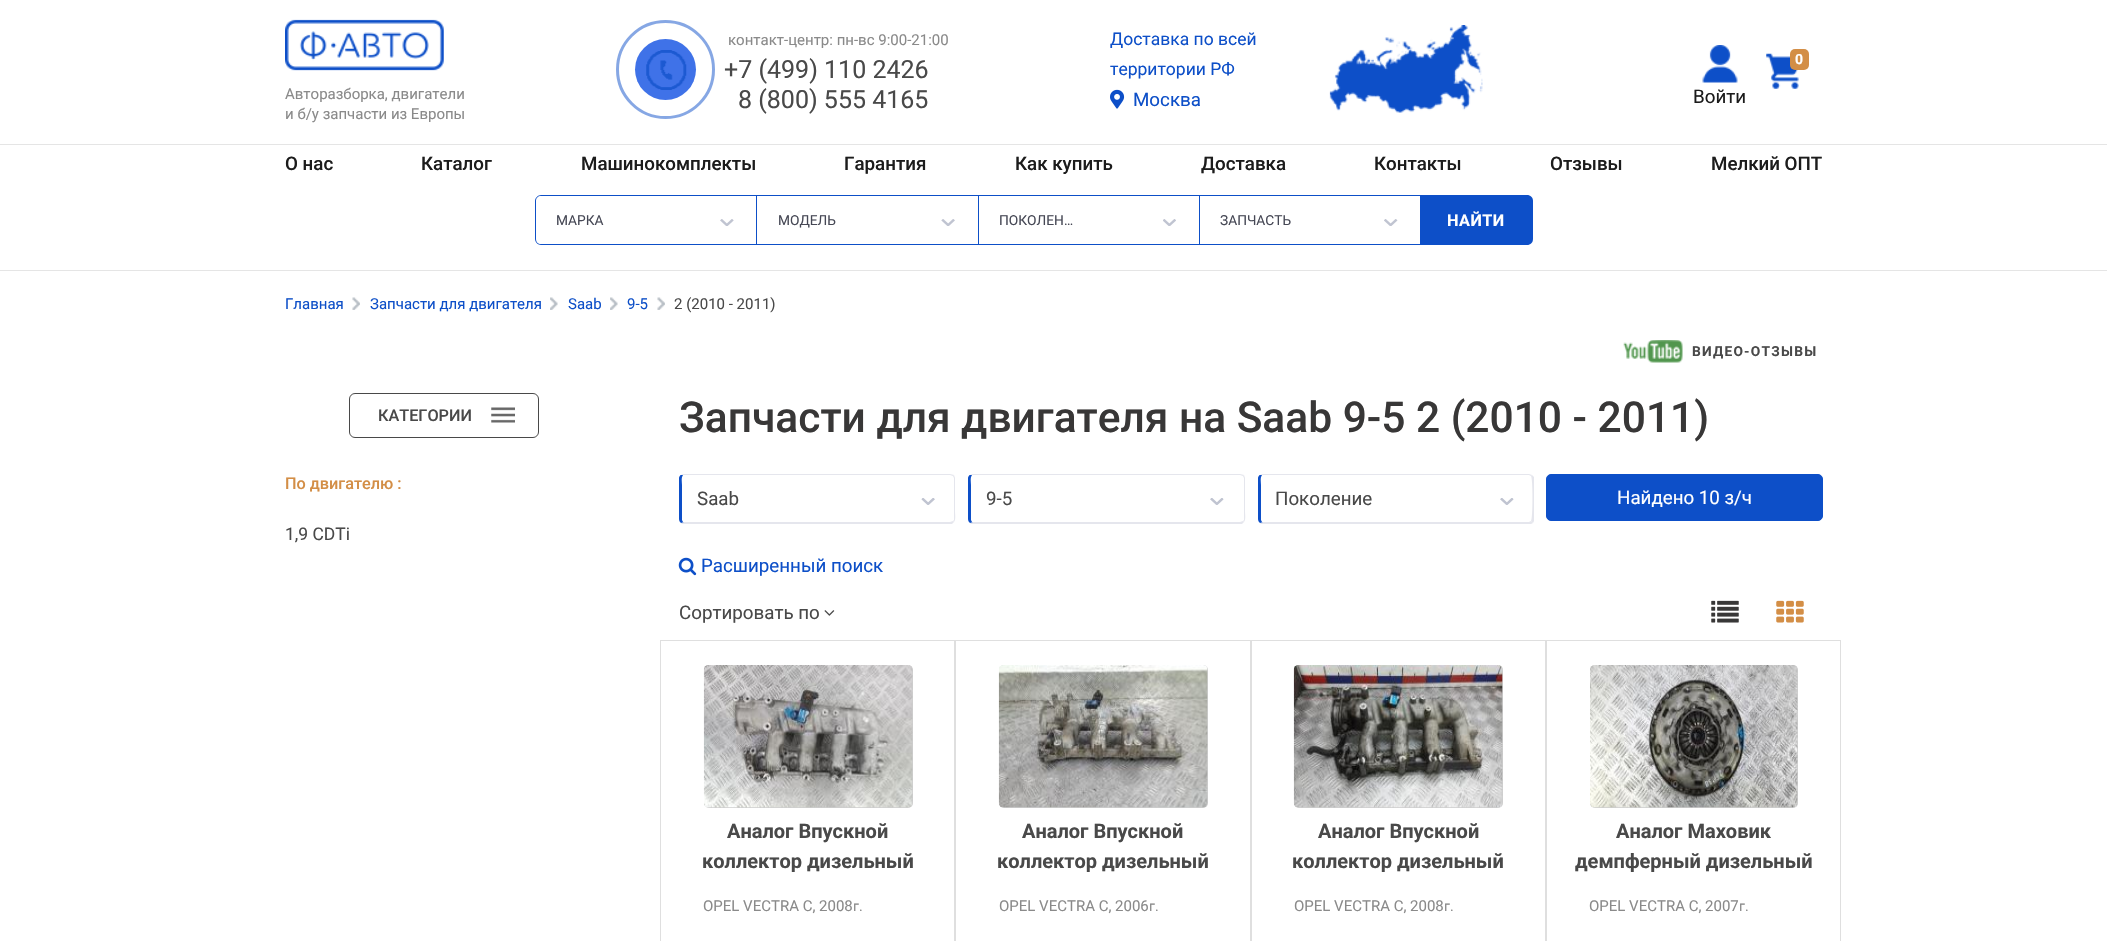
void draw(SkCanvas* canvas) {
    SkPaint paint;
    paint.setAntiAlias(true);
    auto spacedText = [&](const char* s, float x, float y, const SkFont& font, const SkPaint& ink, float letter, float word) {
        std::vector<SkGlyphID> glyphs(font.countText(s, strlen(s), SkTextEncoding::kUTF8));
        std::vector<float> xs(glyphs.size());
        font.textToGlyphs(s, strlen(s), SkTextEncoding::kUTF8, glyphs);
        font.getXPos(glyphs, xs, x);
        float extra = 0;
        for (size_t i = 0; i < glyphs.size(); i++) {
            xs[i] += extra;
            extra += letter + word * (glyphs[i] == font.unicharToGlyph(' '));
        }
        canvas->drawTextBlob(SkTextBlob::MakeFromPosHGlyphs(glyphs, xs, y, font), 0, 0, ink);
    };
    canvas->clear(0xFFFFFFFF);
    paint.setColor(0xFFE5E5E5);
    canvas->drawRect(SkRect::MakeXYWH(0, 270, 2107, 1), paint);
    paint.setStyle(SkPaint::kStroke_Style);
    paint.setStrokeWidth(3);
    paint.setColor(0xFF86A7E4);
    canvas->drawCircle(665.5f, 69.5f, 48, paint);
    paint.setStyle(SkPaint::kFill_Style);
    paint.setColor(0xFF3F72E8);
    canvas->drawCircle(665.5f, 69.5f, 30.5f, paint);
    canvas->drawImageRect(SkImages::DeferredFromEncodedData(SkData::MakeFromFileName("img1.png")), SkRect::MakeXYWH(646, 50, 41, 40), SkSamplingOptions());
    SkFont font1(fontMgr->matchFamilyStyle("Roboto", SkFontStyle::Normal()), 15);
    font1.setSubpixel(true);
    paint.setColor(0xFF8A8A8A);
    canvas->drawString("контакт-центр: пн-вс 9:00-21:00", 728, 45, font1, paint);
    SkFont font2(fontMgr->matchFamilyStyle("Roboto", SkFontStyle::Normal()), 25);
    font2.setSubpixel(true);
    paint.setColor(0xFF494949);
    canvas->drawString("+7 (499) 110 2426", 724, 78, font2, paint);
    canvas->drawString("8 (800) 555 4165", 738, 108, font2, paint);
    canvas->drawImageRect(SkImages::DeferredFromEncodedData(SkData::MakeFromFileName("img2.png")), SkRect::MakeXYWH(1329, 25, 154, 88), SkSamplingOptions());
    SkFont font3(fontMgr->matchFamilyStyle("Roboto", SkFontStyle::Normal()), 17.5f);
    font3.setSubpixel(true);
    paint.setColor(0xFF0D4FC8);
    canvas->drawString("Доставка по всей", 1110, 45, font3, paint);
    canvas->drawString("территории РФ", 1110, 75, font3, paint);
    canvas->drawImageRect(SkImages::DeferredFromEncodedData(SkData::MakeFromFileName("img3.png")), SkRect::MakeXYWH(1110, 89, 15, 20), SkSamplingOptions());
    SkFont font4(fontMgr->matchFamilyStyle("Roboto", SkFontStyle::Normal()), 18.75f);
    font4.setSubpixel(true);
    canvas->drawString("Москва", 1133, 106, font4, paint);
    canvas->drawImageRect(SkImages::DeferredFromEncodedData(SkData::MakeFromFileName("img4.png")), SkRect::MakeXYWH(1766, 53, 33, 36), SkSamplingOptions());
    paint.setColor(0xFFD38E46);
    canvas->drawRoundRect(SkRect::MakeXYWH(1790, 49, 19, 21), 5, 5, paint);
    SkFont font5(fontMgr->matchFamilyStyle("Roboto", SkFontStyle::Bold()), 14);
    font5.setSubpixel(true);
    paint.setColor(0xFFFFFFFF);
    canvas->drawString("0", 1795, 64, font5, paint);
    canvas->drawImageRect(SkImages::DeferredFromEncodedData(SkData::MakeFromFileName("img5.png")), SkRect::MakeXYWH(285, 19, 159, 52), SkSamplingOptions());
    paint.setColor(0xFF8A8A8A);
    canvas->drawString("Авторазборка, двигатели", 285, 99, font1, paint);
    canvas->drawString("и б/у запчасти из Европы", 285, 119, font1, paint);
    canvas->drawImageRect(SkImages::DeferredFromEncodedData(SkData::MakeFromFileName("img6.png")), SkRect::MakeXYWH(1702, 45, 36, 38), SkSamplingOptions());
    paint.setColor(0xFF1C1C1C);
    canvas->drawString("Войти", 1693, 103, font4, paint);
    paint.setColor(0xFFE5E5E5);
    canvas->drawRect(SkRect::MakeXYWH(0, 144, 2107, 1), paint);
    SkFont font6(fontMgr->matchFamilyStyle("Roboto", SkFontStyle(500, SkFontStyle::kNormal_Width, SkFontStyle::kUpright_Slant)), 18.75f);
    font6.setSubpixel(true);
    paint.setColor(0xFF1C1C1C);
    canvas->drawString("О нас", 285, 170, font6, paint);
    canvas->drawString("Каталог", 421, 170, font6, paint);
    canvas->drawString("Машинокомплекты", 581, 170, font6, paint);
    canvas->drawString("Гарантия", 844, 170, font6, paint);
    canvas->drawString("Как купить", 1015, 170, font6, paint);
    canvas->drawString("Доставка", 1201, 170, font6, paint);
    canvas->drawString("Контакты", 1374, 170, font6, paint);
    canvas->drawString("Отзывы", 1550, 170, font6, paint);
    canvas->drawString("Мелкий ОПТ", 1711, 170, font6, paint);
    paint.setColor(0xFF0D4FC8);
    canvas->drawPath(SkPathBuilder(SkPathFillType::kEvenOdd).moveTo(541, 195).lineTo(756, 195).lineTo(756, 245).lineTo(541, 245).cubicTo(538, 245, 535, 242, 535, 239).lineTo(535, 201).cubicTo(535, 198, 538, 195, 541, 195).close().moveTo(541, 196).lineTo(756, 196).lineTo(756, 244).lineTo(541, 244).cubicTo(538, 244, 536, 242, 536, 239).lineTo(536, 201).cubicTo(536, 198, 538, 196, 541, 196).close().detach(), paint);
    SkFont font7(fontMgr->matchFamilyStyle("Roboto", SkFontStyle::Normal()), 13.75f);
    font7.setSubpixel(true);
    paint.setColor(0xFF464855);
    canvas->drawString("МАРКА", 556, 225, font7, paint);
    canvas->drawImageRect(SkImages::DeferredFromEncodedData(SkData::MakeFromFileName("img7.png")), SkRect::MakeXYWH(720, 219, 14, 7), SkSamplingOptions());
    paint.setColor(0xFF0D4FC8);
    canvas->drawRect(SkRect::MakeXYWH(756, 195, 664, 1), paint);
    canvas->drawRect(SkRect::MakeXYWH(756, 244, 664, 1), paint);
    canvas->drawRect(SkRect::MakeXYWH(756, 195, 1, 50), paint);
    paint.setColor(0xFF464855);
    canvas->drawString("МОДЕЛЬ", 778, 225, font7, paint);
    canvas->drawImageRect(SkImages::DeferredFromEncodedData(SkData::MakeFromFileName("img8.png")), SkRect::MakeXYWH(941, 219, 14, 7), SkSamplingOptions());
    paint.setColor(0xFF0D4FC8);
    canvas->drawRect(SkRect::MakeXYWH(978, 195, 1, 50), paint);
    paint.setColor(0xFF464855);
    canvas->drawString("ПОКОЛЕН…", 999, 225, font7, paint);
    canvas->drawImageRect(SkImages::DeferredFromEncodedData(SkData::MakeFromFileName("img9.png")), SkRect::MakeXYWH(1163, 219, 13, 7), SkSamplingOptions());
    paint.setColor(0xFF0D4FC8);
    canvas->drawRect(SkRect::MakeXYWH(1199, 195, 1, 50), paint);
    paint.setColor(0xFF464855);
    canvas->drawString("ЗАПЧАСТЬ", 1220, 225, font7, paint);
    canvas->drawImageRect(SkImages::DeferredFromEncodedData(SkData::MakeFromFileName("img10.png")), SkRect::MakeXYWH(1384, 219, 14, 7), SkSamplingOptions());
    paint.setColor(0xFF0D4FC8);
    canvas->drawPath(SkPathBuilder().moveTo(1420, 195).lineTo(1527, 195).cubicTo(1530.5f, 195, 1533, 197.5f, 1533, 201).lineTo(1533, 239).cubicTo(1533, 242.5f, 1530.5f, 245, 1527, 245).lineTo(1420, 245).close().detach(), paint);
    SkFont font8(fontMgr->matchFamilyStyle("Roboto", SkFontStyle::Bold()), 16.25f);
    font8.setSubpixel(true);
    paint.setColor(0xFFFFFFFF);
    spacedText("НАЙТИ", 1447, 226, font8, paint, 0.5f, 0);
    paint.setColor(0xFF0D4FC8);
    canvas->drawString("Главная", 285, 309, font1, paint);
    canvas->drawImageRect(SkImages::DeferredFromEncodedData(SkData::MakeFromFileName("img11.png")), SkRect::MakeXYWH(352, 297, 8, 13), SkSamplingOptions());
    canvas->drawString("Запчасти для двигателя", 370, 309, font1, paint);
    canvas->drawImageRect(SkImages::DeferredFromEncodedData(SkData::MakeFromFileName("img12.png")), SkRect::MakeXYWH(550, 297, 8, 13), SkSamplingOptions());
    canvas->drawString("Saab", 568, 309, font1, paint);
    canvas->drawImageRect(SkImages::DeferredFromEncodedData(SkData::MakeFromFileName("img13.png")), SkRect::MakeXYWH(610, 297, 8, 13), SkSamplingOptions());
    canvas->drawString("9-5", 627, 309, font1, paint);
    canvas->drawImageRect(SkImages::DeferredFromEncodedData(SkData::MakeFromFileName("img14.png")), SkRect::MakeXYWH(657, 297, 8, 13), SkSamplingOptions());
    paint.setColor(0xFF494949);
    canvas->drawString("2 (2010 - 2011)", 674, 309, font1, paint);
    canvas->drawImageRect(SkImages::DeferredFromEncodedData(SkData::MakeFromFileName("img15.png")), SkRect::MakeXYWH(1623, 340, 60, 23), SkSamplingOptions());
    SkFont font9(fontMgr->matchFamilyStyle("Roboto", SkFontStyle::Bold()), 13.75f);
    font9.setSubpixel(true);
    spacedText("ВИДЕО-ОТЗЫВЫ", 1692, 356, font9, paint, 1.25f, 0);
    canvas->drawImageRect(SkImages::DeferredFromEncodedData(SkData::MakeFromFileName("img16.png")), SkRect::MakeXYWH(491, 407, 24, 16), SkSamplingOptions());
    paint.setStyle(SkPaint::kStroke_Style);
    paint.setStrokeWidth(1);
    canvas->drawRoundRect(SkRect::MakeXYWH(349.5f, 393.5f, 189, 44), 5.5f, 5.5f, paint);
    SkFont font10(fontMgr->matchFamilyStyle("Roboto", SkFontStyle(500, SkFontStyle::kNormal_Width, SkFontStyle::kUpright_Slant)), 16.25f);
    font10.setSubpixel(true);
    paint.setStyle(SkPaint::kFill_Style);
    canvas->drawString("КАТЕГОРИИ", 378, 421, font10, paint);
    paint.setColor(0xFFD38E46);
    canvas->drawString("По двигателю :", 285, 489, font10, paint);
    paint.setColor(0xFF494949);
    canvas->drawString("1,9 CDTi", 285, 540, font3, paint);
    SkFont font11(fontMgr->matchFamilyStyle("Roboto", SkFontStyle(500, SkFontStyle::kNormal_Width, SkFontStyle::kUpright_Slant)), 42.5f);
    font11.setSubpixel(true);
    paint.setColor(0xFF383737);
    canvas->drawString("Запчасти для двигателя на Saab 9-5 2 (2010 - 2011)", 679, 432, font11, paint);
    paint.setColor(0xFFE5E6ED);
    canvas->drawPath(SkPathBuilder().moveTo(683, 474).lineTo(681, 475).lineTo(683, 475).lineTo(950, 475).lineTo(953, 476).lineTo(954, 475).lineTo(950, 474).close().detach(), paint);
    canvas->drawPath(SkPathBuilder().moveTo(954, 475).lineTo(955, 478).lineTo(955, 512).cubicTo(955, 514, 956, 520, 954, 522).lineTo(953, 521).lineTo(954, 520).lineTo(954, 478).lineTo(953, 476).close().detach(), paint);
    canvas->drawPath(SkPathBuilder().moveTo(682, 524).lineTo(681, 523).lineTo(684, 522).lineTo(950, 522).lineTo(953, 521).lineTo(954, 522).lineTo(952, 524).close().detach(), paint);
    paint.setColor(0xFF0D4FC8);
    canvas->drawPath(SkPathBuilder().moveTo(681, 475).cubicTo(680, 475, 679, 477, 679, 478).lineTo(679, 519).cubicTo(679, 521, 680, 522, 681, 523).lineTo(684, 522).lineTo(683, 522).lineTo(682, 520).lineTo(682, 485).cubicTo(682, 481, 681, 478, 683, 475).close().detach(), paint);
    paint.setColor(0xFF494949);
    canvas->drawString("Saab", 697, 505, font4, paint);
    canvas->drawImageRect(SkImages::DeferredFromEncodedData(SkData::MakeFromFileName("img17.png")), SkRect::MakeXYWH(921, 498, 14, 7), SkSamplingOptions());
    paint.setColor(0xFFE5E6ED);
    canvas->drawPath(SkPathBuilder().moveTo(972, 474).lineTo(970, 475).lineTo(972, 475).lineTo(1240, 475).lineTo(1243, 476).lineTo(1244, 475).lineTo(1240, 474).close().detach(), paint);
    canvas->drawPath(SkPathBuilder().moveTo(1244, 475).lineTo(1245, 478).lineTo(1245, 512).cubicTo(1245, 514, 1246, 520, 1244, 522).lineTo(1243, 521).lineTo(1244, 520).lineTo(1244, 478).lineTo(1243, 476).close().detach(), paint);
    canvas->drawPath(SkPathBuilder().moveTo(971, 524).lineTo(970, 523).lineTo(973, 522).lineTo(1240, 522).lineTo(1243, 521).lineTo(1244, 522).lineTo(1242, 524).close().detach(), paint);
    paint.setColor(0xFF0D4FC8);
    canvas->drawPath(SkPathBuilder().moveTo(970, 475).cubicTo(969, 475, 968, 477, 968, 478).lineTo(968, 519).cubicTo(968, 521, 969, 522, 970, 523).lineTo(973, 522).lineTo(972, 522).lineTo(971, 520).lineTo(971, 485).cubicTo(971, 481, 970, 478, 972, 475).close().detach(), paint);
    paint.setColor(0xFF494949);
    canvas->drawString("9-5", 986, 505, font4, paint);
    canvas->drawImageRect(SkImages::DeferredFromEncodedData(SkData::MakeFromFileName("img18.png")), SkRect::MakeXYWH(1210, 498, 14, 7), SkSamplingOptions());
    paint.setColor(0xFFE5E6ED);
    canvas->drawPath(SkPathBuilder().moveTo(1262, 474).lineTo(1260, 475).lineTo(1262, 475).lineTo(1529, 475).lineTo(1531, 476).lineTo(1532, 475).lineTo(1529, 474).close().detach(), paint);
    canvas->drawPath(SkPathBuilder().moveTo(1532, 475).lineTo(1534, 477).lineTo(1534, 521).lineTo(1533, 523).lineTo(1531, 521).cubicTo(1533, 520, 1533, 478, 1531, 476).close().detach(), paint);
    canvas->drawPath(SkPathBuilder().moveTo(1261, 524).lineTo(1260, 523).lineTo(1263, 522).lineTo(1529, 522).lineTo(1531, 521).lineTo(1533, 523).lineTo(1531, 524).close().detach(), paint);
    paint.setColor(0xFF0D4FC8);
    canvas->drawPath(SkPathBuilder().moveTo(1260, 475).cubicTo(1259, 475, 1258, 477, 1258, 478).lineTo(1258, 519).cubicTo(1258, 521, 1259, 522, 1260, 523).lineTo(1263, 522).lineTo(1262, 522).lineTo(1261, 520).lineTo(1261, 485).cubicTo(1261, 481, 1260, 478, 1262, 475).close().detach(), paint);
    paint.setColor(0xFF494949);
    canvas->drawString("Поколение", 1275, 505, font4, paint);
    canvas->drawImageRect(SkImages::DeferredFromEncodedData(SkData::MakeFromFileName("img18.png")), SkRect::MakeXYWH(1500, 498, 14, 7), SkSamplingOptions());
    paint.setColor(0xFF0D4FC8);
    canvas->drawRoundRect(SkRect::MakeXYWH(1546.5f, 474.5f, 276, 46), 4.5f, 4.5f, paint);
    paint.setStyle(SkPaint::kStroke_Style);
    canvas->drawRoundRect(SkRect::MakeXYWH(1546.5f, 474.5f, 276, 46), 4.5f, 4.5f, paint);
    paint.setStyle(SkPaint::kFill_Style);
    paint.setColor(0xFFFFFFFF);
    canvas->drawString("Найдено 10 з/ч", 1617, 504, font4, paint);
    canvas->drawImageRect(SkImages::DeferredFromEncodedData(SkData::MakeFromFileName("img19.png")), SkRect::MakeXYWH(678, 557, 19, 19), SkSamplingOptions());
    paint.setColor(0xFF0D4FC8);
    canvas->drawString("Расширенный поиск", 701, 572, font4, paint);
    paint.setColor(0xFF494949);
    canvas->drawString("Сортировать по", 679, 619, font4, paint);
    canvas->drawImageRect(SkImages::DeferredFromEncodedData(SkData::MakeFromFileName("img20.png")), SkRect::MakeXYWH(824, 610, 11, 6), SkSamplingOptions());
    canvas->drawImageRect(SkImages::DeferredFromEncodedData(SkData::MakeFromFileName("img21.png")), SkRect::MakeXYWH(1711, 600, 28, 23), SkSamplingOptions());
    canvas->drawImageRect(SkImages::DeferredFromEncodedData(SkData::MakeFromFileName("img22.png")), SkRect::MakeXYWH(1776, 600, 28, 23), SkSamplingOptions());
    paint.setStyle(SkPaint::kStroke_Style);
    paint.setColor(0xFFDFDFDF);
    canvas->drawRect(SkRect::MakeXYWH(660.5f, 640.5f, 294, 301), paint);
    paint.setStyle(SkPaint::kFill_Style);
    paint.setColor(0xFFCECECE);
    canvas->drawRoundRect(SkRect::MakeXYWH(704, 665, 209, 143), 5, 5, paint);
    canvas->drawImageRect(SkImages::DeferredFromEncodedData(SkData::MakeFromFileName("img23.png")), SkRect::MakeXYWH(703, 665, 210, 143), SkSamplingOptions());
    SkFont font12(fontMgr->matchFamilyStyle("Roboto", SkFontStyle::Bold()), 20);
    font12.setSubpixel(true);
    paint.setColor(0xFF494949);
    canvas->drawString("Аналог Впускной", 727, 838, font12, paint);
    canvas->drawString("коллектор дизельный", 702, 868, font12, paint);
    paint.setColor(0xFF8A8A8A);
    canvas->drawString("OPEL VECTRA C, 2008", 703, 911, font1, paint);
    SkFont font13(fontMgr->matchFamilyStyle("Roboto", SkFontStyle::Normal()), 14);
    font13.setSubpixel(true);
    canvas->drawString("г.", 853, 911, font13, paint);
    paint.setStyle(SkPaint::kStroke_Style);
    paint.setColor(0xFFDFDFDF);
    canvas->drawRect(SkRect::MakeXYWH(955.5f, 640.5f, 295, 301), paint);
    paint.setStyle(SkPaint::kFill_Style);
    paint.setColor(0xFFCECECE);
    canvas->drawRoundRect(SkRect::MakeXYWH(999, 665, 209, 143), 5, 5, paint);
    canvas->drawImageRect(SkImages::DeferredFromEncodedData(SkData::MakeFromFileName("img24.png")), SkRect::MakeXYWH(998, 665, 210, 143), SkSamplingOptions());
    paint.setColor(0xFF494949);
    canvas->drawString("Аналог Впускной", 1022, 838, font12, paint);
    canvas->drawString("коллектор дизельный", 997, 868, font12, paint);
    paint.setColor(0xFF8A8A8A);
    canvas->drawString("OPEL VECTRA C, 2006", 999, 911, font1, paint);
    canvas->drawString("г.", 1149, 911, font13, paint);
    paint.setStyle(SkPaint::kStroke_Style);
    paint.setColor(0xFFDFDFDF);
    canvas->drawRect(SkRect::MakeXYWH(1251.5f, 640.5f, 294, 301), paint);
    paint.setStyle(SkPaint::kFill_Style);
    paint.setColor(0xFFCECECE);
    canvas->drawRoundRect(SkRect::MakeXYWH(1294, 665, 209, 143), 5, 5, paint);
    canvas->drawImageRect(SkImages::DeferredFromEncodedData(SkData::MakeFromFileName("img25.png")), SkRect::MakeXYWH(1293, 665, 210, 143), SkSamplingOptions());
    paint.setColor(0xFF494949);
    canvas->drawString("Аналог Впускной", 1318, 838, font12, paint);
    canvas->drawString("коллектор дизельный", 1292, 868, font12, paint);
    paint.setColor(0xFF8A8A8A);
    canvas->drawString("OPEL VECTRA C, 2008", 1294, 911, font1, paint);
    canvas->drawString("г.", 1444, 911, font13, paint);
    paint.setStyle(SkPaint::kStroke_Style);
    paint.setColor(0xFFDFDFDF);
    canvas->drawRect(SkRect::MakeXYWH(1546.5f, 640.5f, 294, 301), paint);
    paint.setStyle(SkPaint::kFill_Style);
    paint.setColor(0xFFCECECE);
    canvas->drawRoundRect(SkRect::MakeXYWH(1590, 665, 208, 143), 5, 5, paint);
    canvas->drawImageRect(SkImages::DeferredFromEncodedData(SkData::MakeFromFileName("img26.png")), SkRect::MakeXYWH(1590, 665, 208, 143), SkSamplingOptions());
    paint.setColor(0xFF494949);
    canvas->drawString("Аналог Маховик", 1616, 838, font12, paint);
    canvas->drawString("демпферный дизельный", 1575, 868, font12, paint);
    paint.setColor(0xFF8A8A8A);
    canvas->drawString("OPEL VECTRA C, 2007", 1589, 911, font1, paint);
    canvas->drawString("г.", 1739, 911, font13, paint);
}
